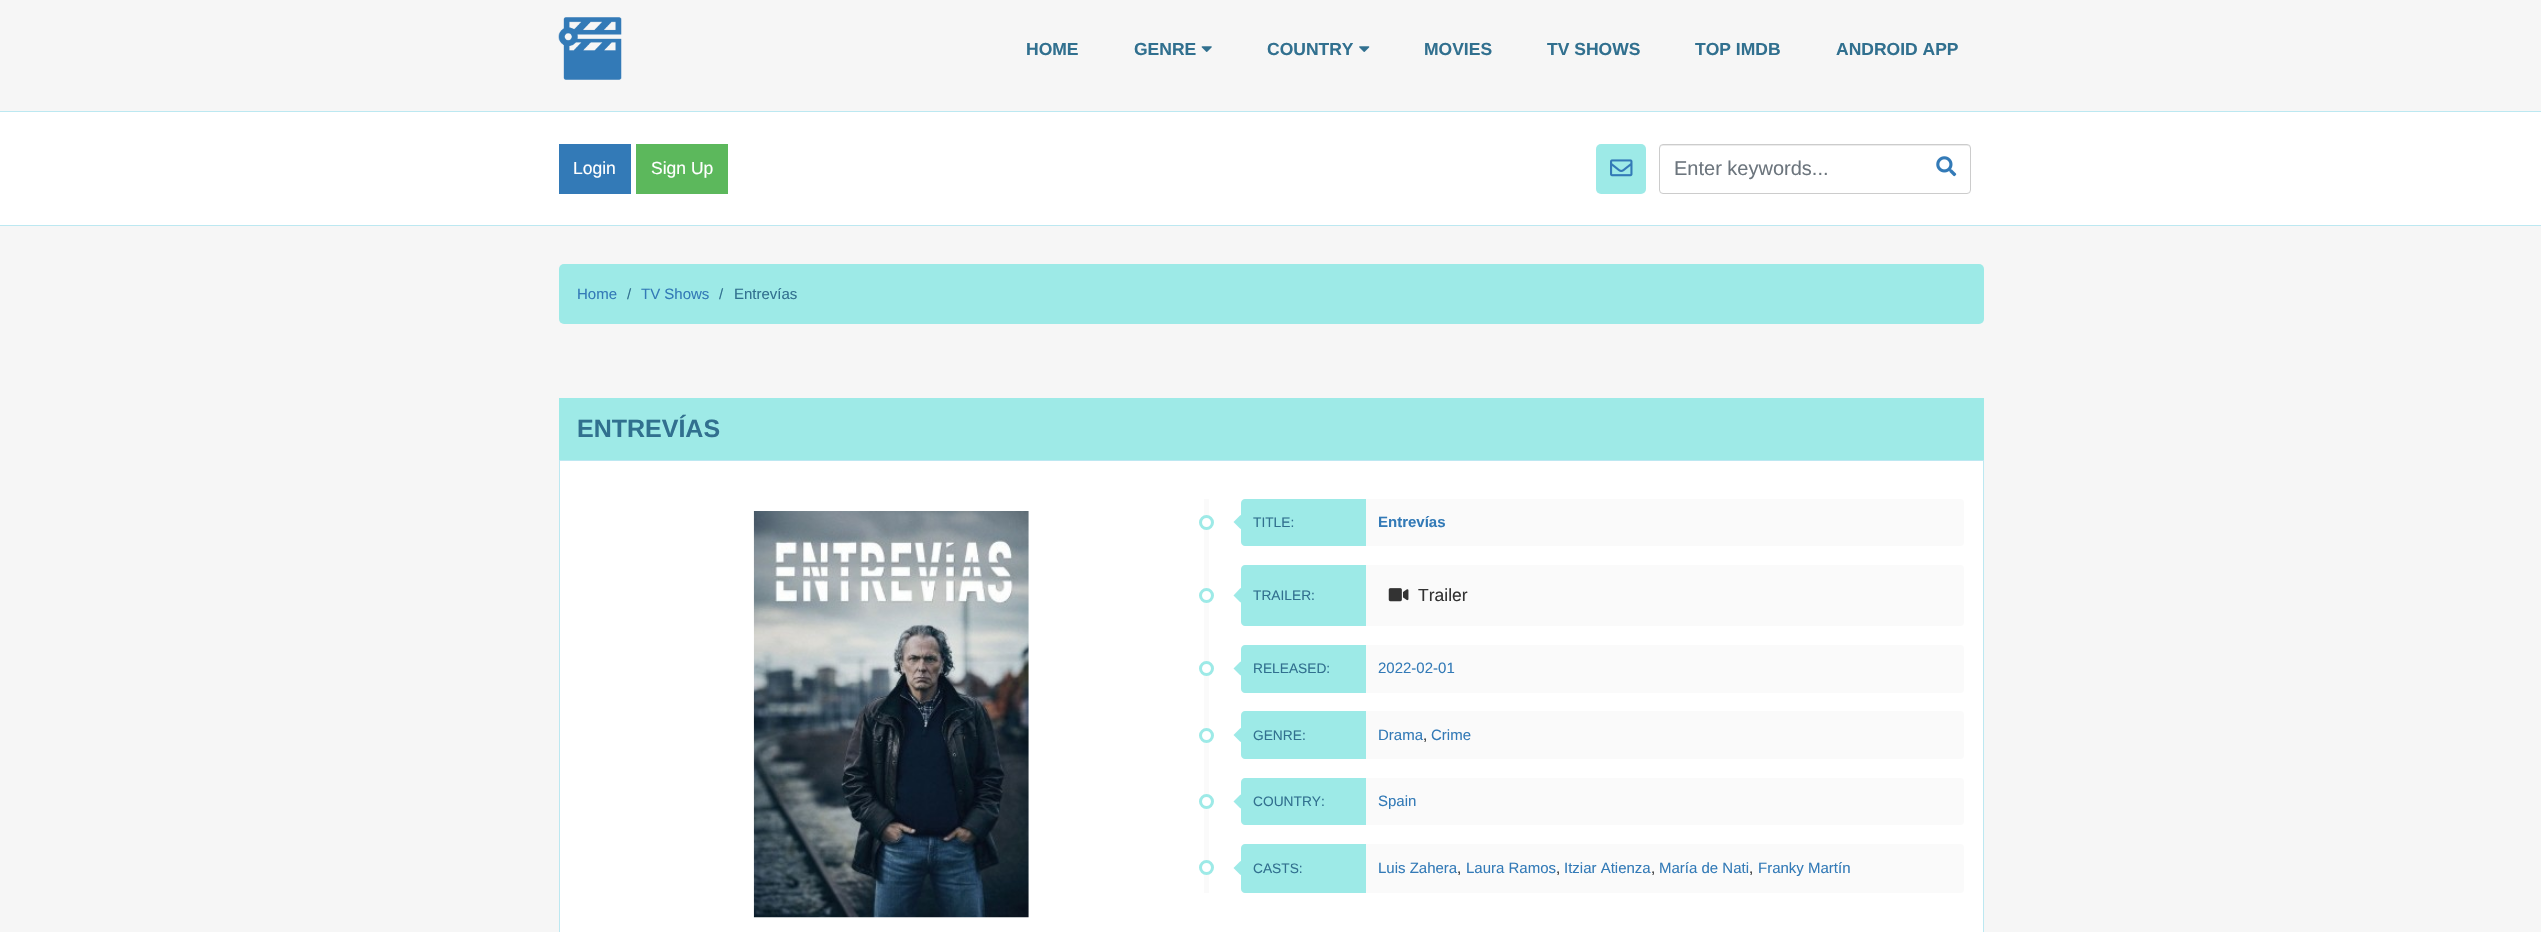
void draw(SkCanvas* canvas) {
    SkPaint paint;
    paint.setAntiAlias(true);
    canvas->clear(0xFFF6F6F6);
    canvas->drawImageRect(SkImages::DeferredFromEncodedData(SkData::MakeFromFileName("img1.png")), SkRect::MakeXYWH(558, 17, 64, 63), SkSamplingOptions());
    SkFont font1(fontMgr->matchFamilyStyle("Liberation Sans", SkFontStyle::Bold()), 17.5f);
    font1.setSubpixel(true);
    paint.setColor(0xFF31708F);
    canvas->drawString("HOME", 1026, 55, font1, paint);
    canvas->drawString("GENRE", 1134, 55, font1, paint);
    canvas->drawImageRect(SkImages::DeferredFromEncodedData(SkData::MakeFromFileName("img2.png")), SkRect::MakeXYWH(1201, 46, 11, 6), SkSamplingOptions());
    canvas->drawString("COUNTRY", 1267, 55, font1, paint);
    canvas->drawImageRect(SkImages::DeferredFromEncodedData(SkData::MakeFromFileName("img3.png")), SkRect::MakeXYWH(1359, 46, 11, 6), SkSamplingOptions());
    canvas->drawString("MOVIES", 1424, 55, font1, paint);
    canvas->drawString("TV SHOWS", 1547, 55, font1, paint);
    canvas->drawString("TOP IMDB", 1695, 55, font1, paint);
    canvas->drawString("ANDROID APP", 1836, 55, font1, paint);
    paint.setColor(0xFFFFFFFF);
    canvas->drawRect(SkRect::MakeXYWH(0, 112, 2541, 113), paint);
    paint.setColor(0xFFBCE8F1);
    canvas->drawRect(SkRect::MakeXYWH(0, 111, 2541, 1), paint);
    canvas->drawRect(SkRect::MakeXYWH(0, 225, 2541, 1), paint);
    paint.setColor(0xFF337AB7);
    canvas->drawRect(SkRect::MakeXYWH(559, 144, 72, 50), paint);
    SkFont font2(fontMgr->matchFamilyStyle("Liberation Sans", SkFontStyle::Normal()), 17.5f);
    font2.setSubpixel(true);
    paint.setColor(0xFFFFFFFF);
    canvas->drawString("Login", 573, 174, font2, paint);
    paint.setColor(0xFF5CB85C);
    canvas->drawRect(SkRect::MakeXYWH(636, 144, 92, 50), paint);
    paint.setColor(0xFFFFFFFF);
    canvas->drawString("Sign Up", 651, 174, font2, paint);
    paint.setColor(0xFF9DEAE7);
    canvas->drawRoundRect(SkRect::MakeXYWH(1596, 144, 50, 50), 5, 5, paint);
    canvas->drawImageRect(SkImages::DeferredFromEncodedData(SkData::MakeFromFileName("img4.png")), SkRect::MakeXYWH(1610, 159, 23, 18), SkSamplingOptions());
    paint.setColor(0xFFECECEC);
    canvas->drawPath(SkPathBuilder().moveTo(1662, 146).lineTo(1968, 146).cubicTo(1969, 146, 1970, 147, 1970, 149).lineTo(1970, 148).cubicTo(1970, 146, 1969, 145, 1968, 145).lineTo(1662, 145).cubicTo(1661, 145, 1660, 146, 1660, 148).lineTo(1660, 149).cubicTo(1660, 147, 1661, 146, 1662, 146).close().detach(), paint);
    paint.setStyle(SkPaint::kStroke_Style);
    paint.setStrokeWidth(1);
    paint.setColor(0xFFCCCCCC);
    canvas->drawRoundRect(SkRect::MakeXYWH(1659.5f, 144.5f, 311, 49), 3.5f, 3.5f, paint);
    SkFont font3(fontMgr->matchFamilyStyle("Liberation Sans", SkFontStyle::Normal()), 20);
    font3.setSubpixel(true);
    paint.setStyle(SkPaint::kFill_Style);
    paint.setColor(0xFF6C757D);
    canvas->drawString("Enter keywords...", 1674, 175, font3, paint);
    canvas->drawImageRect(SkImages::DeferredFromEncodedData(SkData::MakeFromFileName("img5.png")), SkRect::MakeXYWH(1936, 156, 21, 21), SkSamplingOptions());
    paint.setColor(0xFF9DEAE7);
    canvas->drawRoundRect(SkRect::MakeXYWH(559, 264, 1425, 60), 5, 5, paint);
    SkFont font4(fontMgr->matchFamilyStyle("Liberation Sans", SkFontStyle::Normal()), 15);
    font4.setSubpixel(true);
    paint.setColor(0xFF337AB7);
    canvas->drawString("Home", 577, 299, font4, paint);
    paint.setColor(0xFF31708F);
    canvas->drawString("/", 627, 299, font4, paint);
    paint.setColor(0xFF337AB7);
    canvas->drawString("TV Shows", 641, 299, font4, paint);
    paint.setColor(0xFF31708F);
    canvas->drawString("/", 719, 299, font4, paint);
    canvas->drawString("Entrevías", 734, 299, font4, paint);
    paint.setColor(0xFF9EEAE7);
    canvas->drawRect(SkRect::MakeXYWH(559, 398, 1425, 62), paint);
    SkFont font5(fontMgr->matchFamilyStyle("Liberation Sans", SkFontStyle::Bold()), 25);
    font5.setSubpixel(true);
    paint.setColor(0xFF31708F);
    canvas->drawString("ENTREVÍAS", 577, 437, font5, paint);
    paint.setColor(0xFFFFFFFF);
    canvas->drawRect(SkRect::MakeXYWH(559.5f, 460.5f, 1424, 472), paint);
    paint.setStyle(SkPaint::kStroke_Style);
    paint.setColor(0xFFBCE8F1);
    canvas->drawRect(SkRect::MakeXYWH(559.5f, 460.5f, 1424, 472), paint);
    canvas->drawImageRect(SkImages::DeferredFromEncodedData(SkData::MakeFromFileName("img6.png")), SkRect::MakeXYWH(753, 511, 276, 407), SkSamplingOptions());
    paint.setStyle(SkPaint::kFill_Style);
    paint.setColor(0xFFFAFAFA);
    canvas->drawRect(SkRect::MakeXYWH(1204, 499, 5, 394), paint);
    canvas->drawRoundRect(SkRect::MakeXYWH(1241, 499, 723, 47), 4, 4, paint);
    paint.setColor(0xFFFFFFFF);
    canvas->drawCircle(1206.5f, 522.5f, 6, paint);
    paint.setStyle(SkPaint::kStroke_Style);
    paint.setStrokeWidth(3);
    paint.setColor(0xFF9DEAE7);
    canvas->drawCircle(1206.5f, 522.5f, 6, paint);
    paint.setStyle(SkPaint::kFill_Style);
    canvas->drawPath(SkPathBuilder().moveTo(1245, 499).lineTo(1366, 499).lineTo(1366, 546).lineTo(1245, 546).cubicTo(1243, 546, 1241, 544, 1241, 542).lineTo(1241, 503).cubicTo(1241, 501, 1243, 499, 1245, 499).close().detach(), paint);
    canvas->drawPath(SkPathBuilder().moveTo(1240.5f, 515).lineTo(1247.5f, 522).lineTo(1240.5f, 529).lineTo(1233.5f, 522).close().detach(), paint);
    SkFont font6(fontMgr->matchFamilyStyle("Liberation Sans", SkFontStyle::Normal()), 13.75f);
    font6.setSubpixel(true);
    paint.setColor(0xFF31708F);
    canvas->drawString("TITLE:", 1253, 527, font6, paint);
    SkFont font7(fontMgr->matchFamilyStyle("Liberation Sans", SkFontStyle::Bold()), 15);
    font7.setSubpixel(true);
    paint.setColor(0xFF337AB7);
    canvas->drawString("Entrevías", 1378, 527, font7, paint);
    paint.setColor(0xFFFAFAFA);
    canvas->drawRoundRect(SkRect::MakeXYWH(1241, 565, 723, 61), 4, 4, paint);
    paint.setColor(0xFFFFFFFF);
    canvas->drawCircle(1206.5f, 595.5f, 6, paint);
    paint.setStyle(SkPaint::kStroke_Style);
    paint.setColor(0xFF9DEAE7);
    canvas->drawCircle(1206.5f, 595.5f, 6, paint);
    paint.setStyle(SkPaint::kFill_Style);
    canvas->drawPath(SkPathBuilder().moveTo(1245, 565).lineTo(1366, 565).lineTo(1366, 626).lineTo(1245, 626).cubicTo(1243, 626, 1241, 624, 1241, 622).lineTo(1241, 569).cubicTo(1241, 567, 1243, 565, 1245, 565).close().detach(), paint);
    canvas->drawPath(SkPathBuilder().moveTo(1240.5f, 588).lineTo(1247.5f, 595.5f).lineTo(1240.5f, 602.5f).lineTo(1233.5f, 595.5f).close().detach(), paint);
    paint.setColor(0xFF31708F);
    canvas->drawString("TRAILER:", 1253, 600, font6, paint);
    canvas->drawImageRect(SkImages::DeferredFromEncodedData(SkData::MakeFromFileName("img7.png")), SkRect::MakeXYWH(1388, 588, 21, 14), SkSamplingOptions());
    paint.setColor(0xFF333333);
    canvas->drawString("Trailer", 1418, 601, font2, paint);
    paint.setColor(0xFFFAFAFA);
    canvas->drawRoundRect(SkRect::MakeXYWH(1241, 645, 723, 48), 4, 4, paint);
    paint.setColor(0xFFFFFFFF);
    canvas->drawCircle(1206.5f, 668.5f, 6, paint);
    paint.setStyle(SkPaint::kStroke_Style);
    paint.setColor(0xFF9DEAE7);
    canvas->drawCircle(1206.5f, 668.5f, 6, paint);
    paint.setStyle(SkPaint::kFill_Style);
    canvas->drawPath(SkPathBuilder().moveTo(1245, 645).lineTo(1366, 645).lineTo(1366, 693).lineTo(1245, 693).cubicTo(1243, 693, 1241, 691, 1241, 689).lineTo(1241, 649).cubicTo(1241, 647, 1243, 645, 1245, 645).close().detach(), paint);
    canvas->drawPath(SkPathBuilder().moveTo(1240.5f, 661.5f).lineTo(1247.5f, 668.5f).lineTo(1240.5f, 675.5f).lineTo(1233.5f, 668.5f).close().detach(), paint);
    paint.setColor(0xFF31708F);
    canvas->drawString("RELEASED:", 1253, 673, font6, paint);
    paint.setColor(0xFF337AB7);
    canvas->drawString("2022-02-01", 1378, 673, font4, paint);
    paint.setColor(0xFFFAFAFA);
    canvas->drawRoundRect(SkRect::MakeXYWH(1241, 711, 723, 48), 4, 4, paint);
    paint.setColor(0xFFFFFFFF);
    canvas->drawCircle(1206.5f, 735.5f, 6, paint);
    paint.setStyle(SkPaint::kStroke_Style);
    paint.setColor(0xFF9DEAE7);
    canvas->drawCircle(1206.5f, 735.5f, 6, paint);
    paint.setStyle(SkPaint::kFill_Style);
    canvas->drawPath(SkPathBuilder().moveTo(1245, 711).lineTo(1366, 711).lineTo(1366, 759).lineTo(1245, 759).cubicTo(1243, 759, 1241, 757, 1241, 755).lineTo(1241, 715).cubicTo(1241, 713, 1243, 711, 1245, 711).close().detach(), paint);
    canvas->drawPath(SkPathBuilder().moveTo(1240.5f, 728).lineTo(1247.5f, 735).lineTo(1240.5f, 742).lineTo(1233.5f, 735).close().detach(), paint);
    paint.setColor(0xFF31708F);
    canvas->drawString("GENRE:", 1253, 740, font6, paint);
    paint.setColor(0xFF337AB7);
    canvas->drawString("Drama", 1378, 740, font4, paint);
    paint.setColor(0xFF333333);
    canvas->drawString(",", 1423, 740, font4, paint);
    paint.setColor(0xFF337AB7);
    canvas->drawString("Crime", 1431, 740, font4, paint);
    paint.setColor(0xFFFAFAFA);
    canvas->drawRoundRect(SkRect::MakeXYWH(1241, 778, 723, 47), 4, 4, paint);
    paint.setColor(0xFFFFFFFF);
    canvas->drawCircle(1206.5f, 801.5f, 6, paint);
    paint.setStyle(SkPaint::kStroke_Style);
    paint.setColor(0xFF9DEAE7);
    canvas->drawCircle(1206.5f, 801.5f, 6, paint);
    paint.setStyle(SkPaint::kFill_Style);
    canvas->drawPath(SkPathBuilder().moveTo(1245, 778).lineTo(1366, 778).lineTo(1366, 825).lineTo(1245, 825).cubicTo(1243, 825, 1241, 823, 1241, 821).lineTo(1241, 782).cubicTo(1241, 780, 1243, 778, 1245, 778).close().detach(), paint);
    canvas->drawPath(SkPathBuilder().moveTo(1240.5f, 794.5f).lineTo(1247.5f, 801.5f).lineTo(1240.5f, 808.5f).lineTo(1233.5f, 801.5f).close().detach(), paint);
    paint.setColor(0xFF31708F);
    canvas->drawString("COUNTRY:", 1253, 806, font6, paint);
    paint.setColor(0xFF337AB7);
    canvas->drawString("Spain", 1378, 806, font4, paint);
    paint.setColor(0xFFFAFAFA);
    canvas->drawRoundRect(SkRect::MakeXYWH(1241, 844, 723, 49), 4, 4, paint);
    paint.setColor(0xFFFFFFFF);
    canvas->drawCircle(1206.5f, 867.5f, 6, paint);
    paint.setStyle(SkPaint::kStroke_Style);
    paint.setColor(0xFF9DEAE7);
    canvas->drawCircle(1206.5f, 867.5f, 6, paint);
    paint.setStyle(SkPaint::kFill_Style);
    canvas->drawPath(SkPathBuilder().moveTo(1245, 844).lineTo(1366, 844).lineTo(1366, 893).lineTo(1245, 893).cubicTo(1243, 893, 1241, 891, 1241, 889).lineTo(1241, 848).cubicTo(1241, 846, 1243, 844, 1245, 844).close().detach(), paint);
    canvas->drawPath(SkPathBuilder().moveTo(1240.5f, 861).lineTo(1247.5f, 868).lineTo(1240.5f, 875).lineTo(1233.5f, 868).close().detach(), paint);
    paint.setColor(0xFF31708F);
    canvas->drawString("CASTS:", 1253, 873, font6, paint);
    paint.setColor(0xFF337AB7);
    canvas->drawString("Luis Zahera", 1378, 873, font4, paint);
    paint.setColor(0xFF333333);
    canvas->drawString(",", 1457, 873, font4, paint);
    paint.setColor(0xFF337AB7);
    canvas->drawString("Laura Ramos", 1466, 873, font4, paint);
    paint.setColor(0xFF333333);
    canvas->drawString(",", 1556, 873, font4, paint);
    paint.setColor(0xFF337AB7);
    canvas->drawString("Itziar Atienza", 1564, 873, font4, paint);
    paint.setColor(0xFF333333);
    canvas->drawString(",", 1651, 873, font4, paint);
    paint.setColor(0xFF337AB7);
    canvas->drawString("María de Nati", 1659, 873, font4, paint);
    paint.setColor(0xFF333333);
    canvas->drawString(",", 1749, 873, font4, paint);
    paint.setColor(0xFF337AB7);
    canvas->drawString("Franky Martín", 1758, 873, font4, paint);
}
